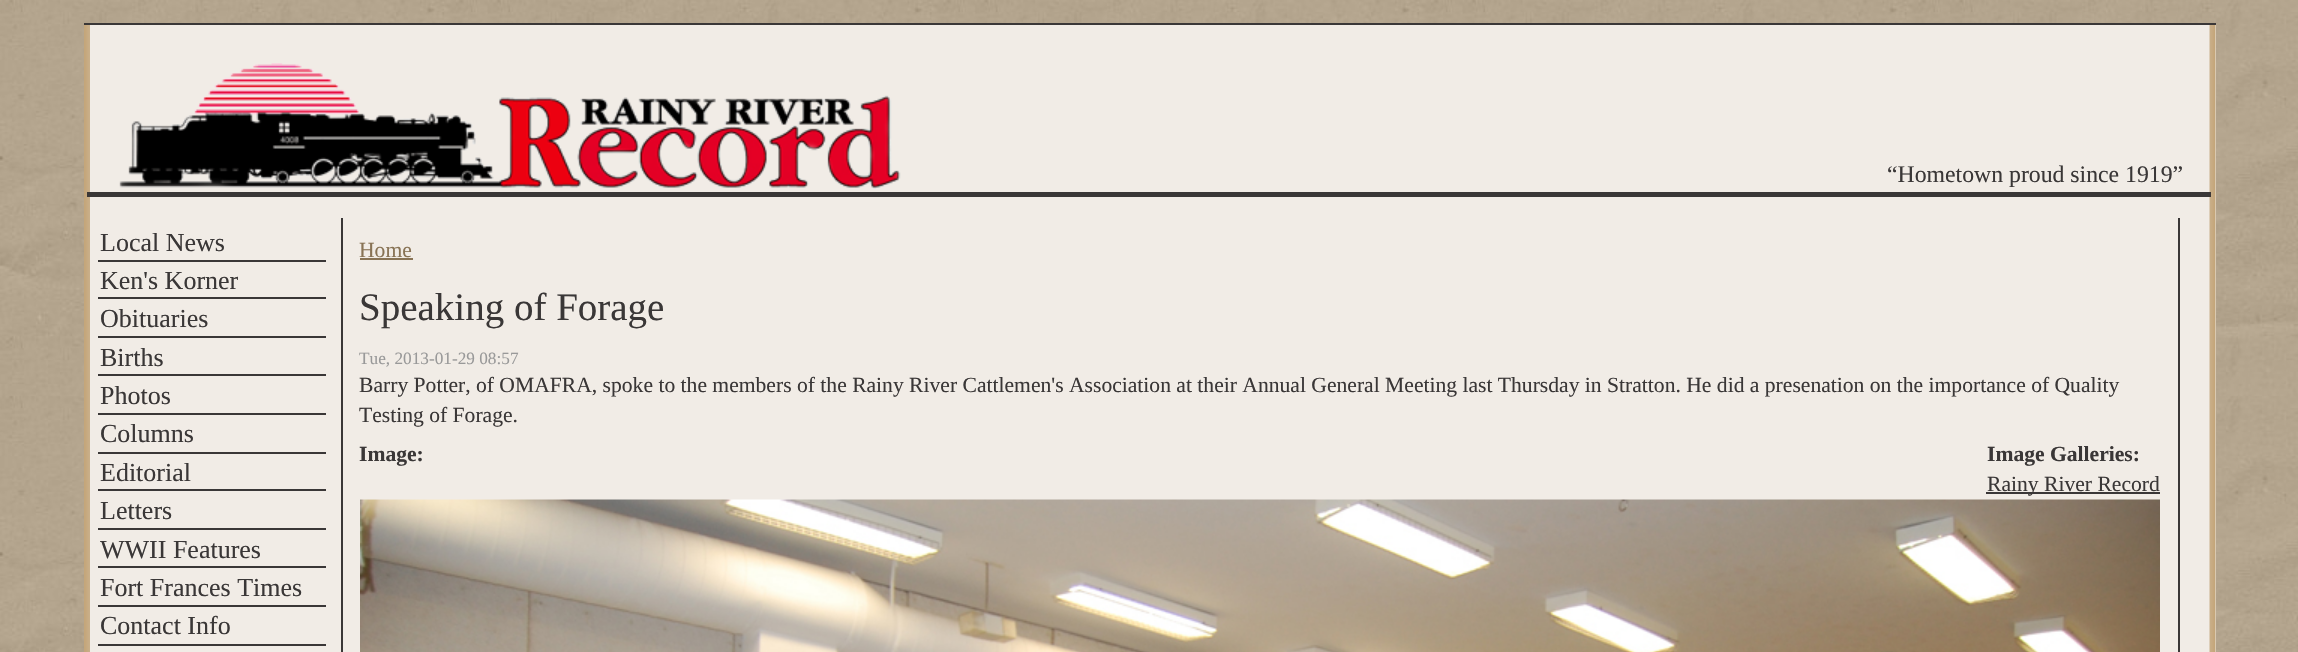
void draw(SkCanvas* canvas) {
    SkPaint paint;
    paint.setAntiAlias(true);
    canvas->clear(0xFFFFFFFF);
    canvas->drawImageRect(SkImages::DeferredFromEncodedData(SkData::MakeFromFileName("img1.png")), SkRect::MakeXYWH(0, 0, 2298, 652), SkSamplingOptions());
    paint.setColor(0xFFF1ECE6);
    canvas->drawRect(SkRect::MakeXYWH(90, 25, 2126, 627), paint);
    paint.setColor(0xFF3A3737);
    canvas->drawRect(SkRect::MakeXYWH(84, 23, 2132, 2), paint);
    canvas->drawImageRect(SkImages::DeferredFromEncodedData(SkData::MakeFromFileName("img2.png")), SkRect::MakeXYWH(84, 25, 6, 627), SkSamplingOptions());
    canvas->drawImageRect(SkImages::DeferredFromEncodedData(SkData::MakeFromFileName("img3.png")), SkRect::MakeXYWH(2209, 25, 7, 627), SkSamplingOptions());
    canvas->drawRect(SkRect::MakeXYWH(87, 192, 2124, 5), paint);
    canvas->drawImageRect(SkImages::DeferredFromEncodedData(SkData::MakeFromFileName("img4.png")), SkRect::MakeXYWH(119, 63, 782, 126), SkSamplingOptions());
    SkFont font1(fontMgr->matchFamilyStyle("Liberation Serif", SkFontStyle::Normal()), 23.75f);
    font1.setSubpixel(true);
    canvas->drawString("“Hometown proud since 1919”", 1887, 182, font1, paint);
    canvas->drawRect(SkRect::MakeXYWH(341, 218, 2, 434), paint);
    canvas->drawRect(SkRect::MakeXYWH(98, 260, 228, 2), paint);
    SkFont font2(fontMgr->matchFamilyStyle("Liberation Serif", SkFontStyle::Normal()), 26);
    font2.setSubpixel(true);
    canvas->drawString("Local News", 100, 251, font2, paint);
    canvas->drawRect(SkRect::MakeXYWH(98, 297, 228, 2), paint);
    canvas->drawString("Ken's Korner", 100, 289, font2, paint);
    canvas->drawRect(SkRect::MakeXYWH(98, 336, 228, 2), paint);
    canvas->drawString("Obituaries", 100, 327, font2, paint);
    canvas->drawRect(SkRect::MakeXYWH(98, 374, 228, 2), paint);
    canvas->drawString("Births", 100, 366, font2, paint);
    canvas->drawRect(SkRect::MakeXYWH(98, 413, 228, 2), paint);
    canvas->drawString("Photos", 100, 404, font2, paint);
    canvas->drawRect(SkRect::MakeXYWH(98, 452, 228, 2), paint);
    canvas->drawString("Columns", 100, 442, font2, paint);
    canvas->drawRect(SkRect::MakeXYWH(98, 489, 228, 2), paint);
    canvas->drawString("Editorial", 100, 481, font2, paint);
    canvas->drawRect(SkRect::MakeXYWH(98, 528, 228, 2), paint);
    canvas->drawString("Letters", 100, 519, font2, paint);
    canvas->drawRect(SkRect::MakeXYWH(98, 566, 228, 2), paint);
    canvas->drawString("WWII Features", 100, 558, font2, paint);
    canvas->drawRect(SkRect::MakeXYWH(98, 605, 228, 2), paint);
    canvas->drawString("Fort Frances Times", 100, 596, font2, paint);
    canvas->drawRect(SkRect::MakeXYWH(98, 644, 228, 2), paint);
    canvas->drawString("Contact Info", 100, 634, font2, paint);
    SkFont font3(fontMgr->matchFamilyStyle("Liberation Serif", SkFontStyle::Normal()), 21.6f);
    font3.setSubpixel(true);
    paint.setColor(0xFF887355);
    canvas->drawString("Home", 359, 257, font3, paint);
    canvas->drawRect(SkRect::MakeXYWH(360, 258, 53, 2), paint);
    SkFont font4(fontMgr->matchFamilyStyle("Liberation Serif", SkFontStyle::Normal()), 39);
    font4.setSubpixel(true);
    paint.setColor(0xFF3A3737);
    canvas->drawString("Speaking of Forage", 359, 320, font4, paint);
    SkFont font5(fontMgr->matchFamilyStyle("Liberation Serif", SkFontStyle::Normal()), 17.25f);
    font5.setSubpixel(true);
    paint.setColor(0xFF999999);
    canvas->drawString("Tue, 2013-01-29 08:57", 359, 364, font5, paint);
    paint.setColor(0xFF3A3737);
    canvas->drawString("Barry Potter, of OMAFRA, spoke to the members of the Rainy River Cattlemen's Association at their Annual General Meeting last Thursday in Stratton. He did a presenation on the importance of Quality", 359, 392, font3, paint);
    canvas->drawString("Testing of Forage.", 359, 422, font3, paint);
    SkFont font6(fontMgr->matchFamilyStyle("Liberation Serif", SkFontStyle::Bold()), 21.6f);
    font6.setSubpixel(true);
    canvas->drawString("Image:", 359, 461, font6, paint);
    canvas->drawImageRect(SkImages::DeferredFromEncodedData(SkData::MakeFromFileName("img5.png")), SkRect::MakeXYWH(360, 499, 1800, 153), SkSamplingOptions());
    canvas->drawString("Image Galleries:", 1987, 461, font6, paint);
    canvas->drawRect(SkRect::MakeXYWH(1986, 492, 174, 2), paint);
    canvas->drawString("Rainy River Record", 1987, 491, font3, paint);
    canvas->drawRect(SkRect::MakeXYWH(2178, 218, 2, 434), paint);
}
